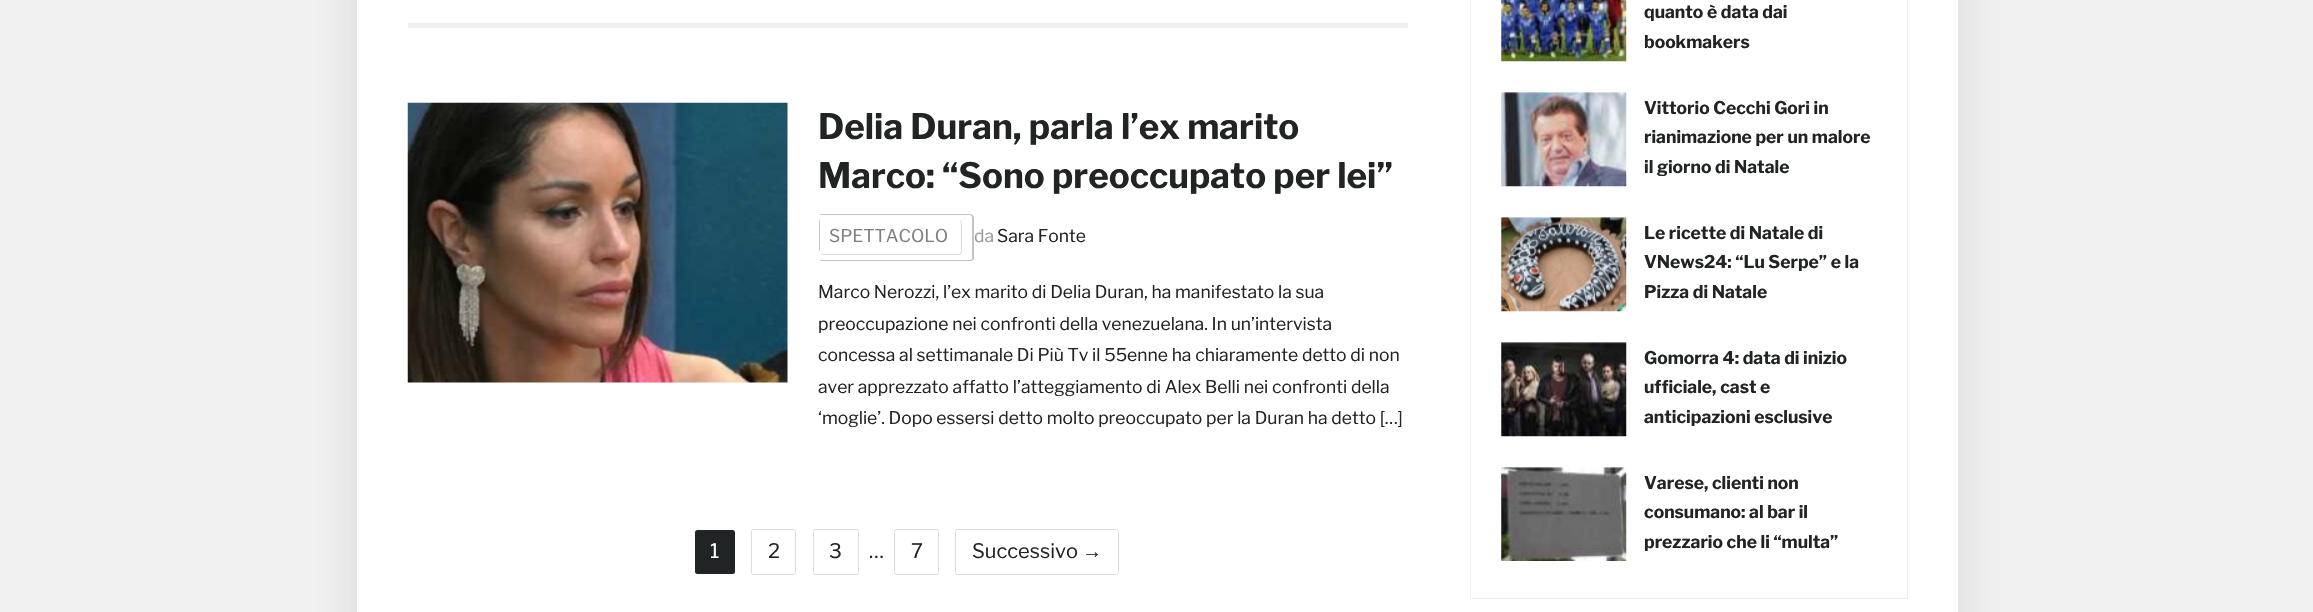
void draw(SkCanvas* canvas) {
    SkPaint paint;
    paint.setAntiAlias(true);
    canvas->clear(0xFFF1F1F1);
    paint.setColor(0x1A000000);
    paint.setMaskFilter(SkMaskFilter::MakeBlur(kNormal_SkBlurStyle, 22));
    canvas->drawRect(SkRect::MakeXYWH(356, -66, 1603, 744), paint);
    paint.setMaskFilter(nullptr);
    paint.setColor(0xFFFFFFFF);
    canvas->drawRect(SkRect::MakeXYWH(357, 0, 1601, 612), paint);
    paint.setColor(0xFFEEEEEE);
    canvas->drawRect(SkRect::MakeXYWH(408, 23, 1000, 5), paint);
    canvas->drawImageRect(SkImages::DeferredFromEncodedData(SkData::MakeFromFileName("img1.png")), SkRect::MakeXYWH(407, 102, 381, 281), SkSamplingOptions());
    SkFont font1(fontMgr->matchFamilyStyle("Libre Franklin", SkFontStyle::Bold()), 35);
    font1.setSubpixel(true);
    paint.setColor(0xFF212425);
    canvas->drawString("Delia Duran, parla l’ex marito", 818, 139, font1, paint);
    canvas->drawString("Marco: “Sono preoccupato per lei”", 818, 188, font1, paint);
    paint.setColor(0xFFC4C4C4);
    canvas->drawPath(SkPathBuilder(SkPathFillType::kEvenOdd).moveTo(822, 219).lineTo(949, 219).lineTo(949, 252).lineTo(822, 252).cubicTo(820, 252, 819, 251, 819, 249).lineTo(819, 222).cubicTo(819, 220, 820, 219, 822, 219).close().moveTo(822, 220).lineTo(949, 220).lineTo(949, 251).lineTo(822, 251).cubicTo(821, 251, 820, 250, 820, 249).lineTo(820, 222).cubicTo(820, 221, 821, 220, 822, 220).close().detach(), paint);
    paint.setColor(0xFFFFFFFF);
    canvas->drawPath(SkPathBuilder().moveTo(820, 214).lineTo(970, 214).cubicTo(972, 214, 974, 216, 974, 218).lineTo(974, 257).cubicTo(974, 259, 972, 261, 970, 261).lineTo(820, 261).close().detach(), paint);
    paint.setColor(0xFFC4C4C4);
    canvas->drawPath(SkPathBuilder(SkPathFillType::kEvenOdd).moveTo(820, 214).lineTo(970, 214).cubicTo(972, 214, 974, 215, 974, 218).lineTo(974, 258).cubicTo(974, 260, 972, 261, 970, 261).lineTo(820, 261).close().moveTo(820, 215).lineTo(970, 215).cubicTo(971, 215, 972, 216, 972, 218).lineTo(972, 258).cubicTo(972, 259, 971, 260, 970, 260).lineTo(820, 260).close().detach(), paint);
    SkFont font2(fontMgr->matchFamilyStyle("Libre Franklin", SkFontStyle::Normal()), 17.5f);
    font2.setSubpixel(true);
    paint.setColor(0xFF808080);
    canvas->drawString("SPETTACOLO", 829, 242, font2, paint);
    paint.setColor(0xFFDDDDDD);
    canvas->drawPath(SkPathBuilder(SkPathFillType::kEvenOdd).moveTo(824, 220).lineTo(959, 220).cubicTo(961, 220, 962, 222, 962, 224).lineTo(962, 251).cubicTo(962, 253, 961, 255, 959, 255).lineTo(824, 255).cubicTo(822, 255, 820, 253, 820, 251).lineTo(820, 224).cubicTo(820, 222, 822, 220, 824, 220).close().moveTo(824, 220).lineTo(959, 220).cubicTo(960, 220, 961, 222, 961, 224).lineTo(961, 251).cubicTo(961, 253, 960, 254, 959, 254).lineTo(824, 254).cubicTo(822, 254, 820, 253, 820, 251).lineTo(820, 224).cubicTo(820, 222, 822, 220, 824, 220).close().detach(), paint);
    paint.setColor(0xFF999999);
    canvas->drawString("da", 974, 242, font2, paint);
    paint.setColor(0xFF212425);
    canvas->drawString("Sara Fonte", 997, 242, font2, paint);
    canvas->drawString("Marco Nerozzi, l’ex marito di Delia Duran, ha manifestato la sua", 818, 298, font2, paint);
    canvas->drawString("preoccupazione nei confronti della venezuelana. In un’intervista", 818, 330, font2, paint);
    canvas->drawString("concessa al settimanale Di Più Tv il 55enne ha chiaramente detto di non", 818, 361, font2, paint);
    canvas->drawString("aver apprezzato affatto l’atteggiamento di Alex Belli nei confronti della", 818, 393, font2, paint);
    canvas->drawString("‘moglie’. Dopo essersi detto molto preoccupato per la Duran ha detto […]", 818, 424, font2, paint);
    canvas->drawRoundRect(SkRect::MakeXYWH(695, 530, 40, 44), 2.5f, 2.5f, paint);
    SkFont font3(fontMgr->matchFamilyStyle("Libre Franklin", SkFontStyle::Normal()), 20);
    font3.setSubpixel(true);
    paint.setColor(0xFFFFFFFF);
    canvas->drawString("1", 710, 558, font3, paint);
    paint.setStyle(SkPaint::kStroke_Style);
    paint.setStrokeWidth(1);
    paint.setColor(0xFFDCDCDC);
    canvas->drawRoundRect(SkRect::MakeXYWH(751.5f, 529.5f, 44, 45), 2, 2, paint);
    paint.setStyle(SkPaint::kFill_Style);
    paint.setColor(0xFF212425);
    canvas->drawString("2", 768, 558, font3, paint);
    paint.setStyle(SkPaint::kStroke_Style);
    paint.setColor(0xFFDCDCDC);
    canvas->drawRoundRect(SkRect::MakeXYWH(813.5f, 529.5f, 45, 45), 2, 2, paint);
    paint.setStyle(SkPaint::kFill_Style);
    paint.setColor(0xFF212425);
    canvas->drawString("3", 829, 558, font3, paint);
    canvas->drawString("…", 869, 558, font3, paint);
    paint.setStyle(SkPaint::kStroke_Style);
    paint.setColor(0xFFDCDCDC);
    canvas->drawRoundRect(SkRect::MakeXYWH(894.5f, 529.5f, 44, 45), 2, 2, paint);
    paint.setStyle(SkPaint::kFill_Style);
    paint.setColor(0xFF212425);
    canvas->drawString("7", 911, 558, font3, paint);
    paint.setStyle(SkPaint::kStroke_Style);
    paint.setColor(0xFFDCDCDC);
    canvas->drawRoundRect(SkRect::MakeXYWH(955.5f, 529.5f, 163, 45), 2, 2, paint);
    paint.setStyle(SkPaint::kFill_Style);
    paint.setColor(0xFF212425);
    canvas->drawString("Successivo", 972, 558, font3, paint);
    SkFont font4(fontMgr->matchFamilyStyle("Liberation Sans", SkFontStyle::Normal()), 20);
    font4.setSubpixel(true);
    canvas->drawString("→", 1082, 558, font4, paint);
    paint.setStyle(SkPaint::kStroke_Style);
    paint.setColor(0xFFEEEEEE);
    canvas->drawRect(SkRect::MakeXYWH(1470.5f, -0.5f, 437, 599), paint);
    canvas->drawImageRect(SkImages::DeferredFromEncodedData(SkData::MakeFromFileName("img2.png")), SkRect::MakeXYWH(1501, 0, 126, 62), SkSamplingOptions());
    SkFont font5(fontMgr->matchFamilyStyle("Libre Franklin", SkFontStyle::Bold()), 17.5f);
    font5.setSubpixel(true);
    paint.setStyle(SkPaint::kFill_Style);
    paint.setColor(0xFF212425);
    canvas->drawString("quanto è data dai", 1644, 18, font5, paint);
    canvas->drawString("bookmakers", 1644, 48, font5, paint);
    canvas->drawImageRect(SkImages::DeferredFromEncodedData(SkData::MakeFromFileName("img3.png")), SkRect::MakeXYWH(1501, 92, 126, 95), SkSamplingOptions());
    canvas->drawString("Vittorio Cecchi Gori in", 1644, 114, font5, paint);
    canvas->drawString("rianimazione per un malore", 1644, 143, font5, paint);
    canvas->drawString("il giorno di Natale", 1644, 173, font5, paint);
    canvas->drawImageRect(SkImages::DeferredFromEncodedData(SkData::MakeFromFileName("img4.png")), SkRect::MakeXYWH(1501, 217, 126, 95), SkSamplingOptions());
    canvas->drawString("Le ricette di Natale di", 1644, 239, font5, paint);
    canvas->drawString("VNews24: “Lu Serpe” e la", 1644, 268, font5, paint);
    canvas->drawString("Pizza di Natale", 1644, 298, font5, paint);
    canvas->drawImageRect(SkImages::DeferredFromEncodedData(SkData::MakeFromFileName("img5.png")), SkRect::MakeXYWH(1501, 342, 126, 95), SkSamplingOptions());
    canvas->drawString("Gomorra 4: data di inizio", 1644, 364, font5, paint);
    canvas->drawString("ufficiale, cast e", 1644, 393, font5, paint);
    canvas->drawString("anticipazioni esclusive", 1644, 423, font5, paint);
    canvas->drawImageRect(SkImages::DeferredFromEncodedData(SkData::MakeFromFileName("img6.png")), SkRect::MakeXYWH(1501, 467, 126, 94), SkSamplingOptions());
    canvas->drawString("Varese, clienti non", 1644, 489, font5, paint);
    canvas->drawString("consumano: al bar il", 1644, 518, font5, paint);
    canvas->drawString("prezzario che li “multa”", 1644, 548, font5, paint);
}
